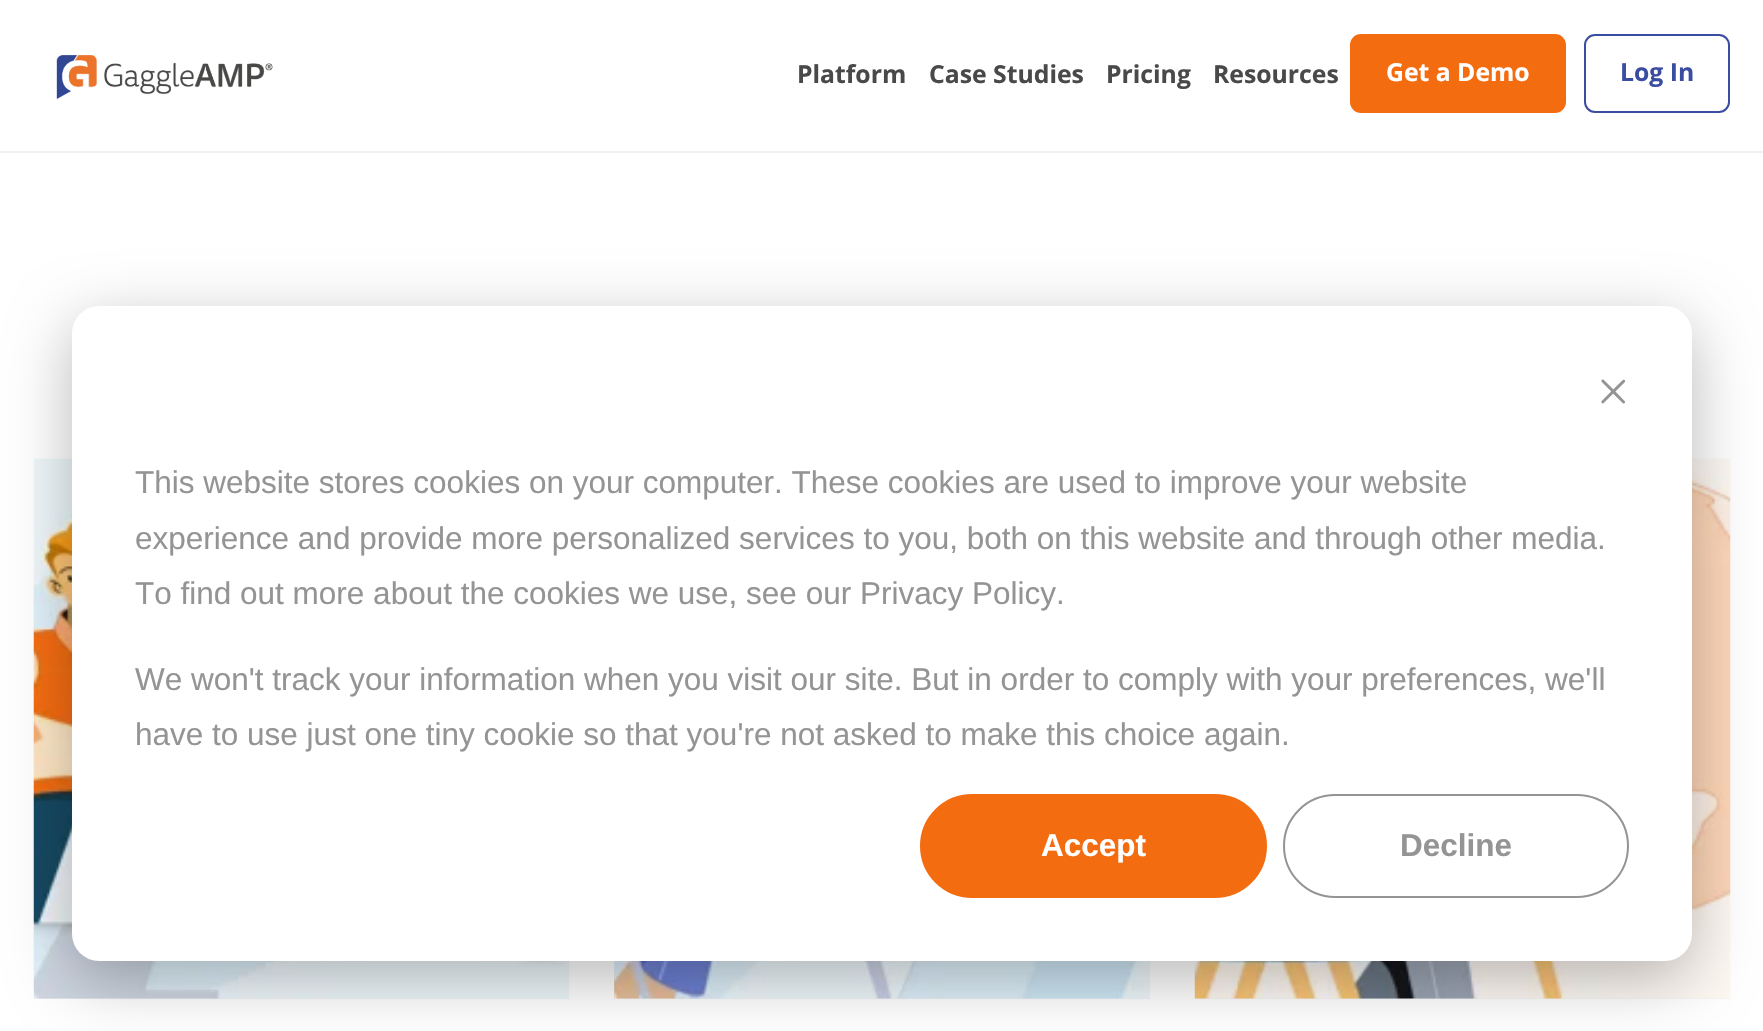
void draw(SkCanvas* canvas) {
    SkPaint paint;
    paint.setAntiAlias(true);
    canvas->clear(0xFFFFFFFF);
    paint.setColor(0xFFEFEFEF);
    canvas->drawRect(SkRect::MakeXYWH(0, 151, 1763, 2), paint);
    canvas->drawImageRect(SkImages::DeferredFromEncodedData(SkData::MakeFromFileName("img1.png")), SkRect::MakeXYWH(56, 55, 217, 44), SkSamplingOptions());
    SkFont font1(fontMgr->matchFamilyStyle("Open Sans", SkFontStyle::Bold()), 24.75f);
    font1.setSubpixel(true);
    paint.setColor(0xFF494949);
    canvas->drawString("Platform", 797, 83, font1, paint);
    canvas->drawString("Case Studies", 929, 83, font1, paint);
    canvas->drawString("Pricing", 1106, 83, font1, paint);
    canvas->drawString("Resources", 1213, 83, font1, paint);
    paint.setColor(0xFFF46C10);
    canvas->drawRoundRect(SkRect::MakeXYWH(1351, 35, 214, 77), 10, 10, paint);
    paint.setStyle(SkPaint::kStroke_Style);
    paint.setStrokeWidth(2);
    canvas->drawRoundRect(SkRect::MakeXYWH(1351, 35, 214, 77), 10, 10, paint);
    paint.setStyle(SkPaint::kFill_Style);
    paint.setColor(0xFFFFFFFF);
    canvas->drawString("Get a Demo", 1386, 81, font1, paint);
    paint.setStyle(SkPaint::kStroke_Style);
    paint.setColor(0xFF3A4DA0);
    canvas->drawRoundRect(SkRect::MakeXYWH(1585, 35, 144, 77), 10, 10, paint);
    paint.setStyle(SkPaint::kFill_Style);
    canvas->drawString("Log In", 1620, 81, font1, paint);
    paint.setColor(0xFFEDF1F3);
    canvas->drawRect(SkRect::MakeXYWH(34, 998, 535, 1), paint);
    canvas->drawImageRect(SkImages::DeferredFromEncodedData(SkData::MakeFromFileName("img2.png")), SkRect::MakeXYWH(33, 458, 537, 541), SkSamplingOptions());
    canvas->drawRect(SkRect::MakeXYWH(614, 961, 536, 38), paint);
    canvas->drawImageRect(SkImages::DeferredFromEncodedData(SkData::MakeFromFileName("img3.png")), SkRect::MakeXYWH(614, 961, 536, 38), SkSamplingOptions());
    canvas->drawRect(SkRect::MakeXYWH(1195, 998, 535, 1), paint);
    canvas->drawImageRect(SkImages::DeferredFromEncodedData(SkData::MakeFromFileName("img4.png")), SkRect::MakeXYWH(1194, 458, 537, 541), SkSamplingOptions());
    paint.setColor(0x47000000);
    paint.setMaskFilter(SkMaskFilter::MakeBlur(kNormal_SkBlurStyle, 31.5f));
    canvas->drawRoundRect(SkRect::MakeXYWH(72, 324, 1620, 655), 27, 27, paint);
    paint.setMaskFilter(nullptr);
    paint.setColor(0xFFFFFFFF);
    canvas->drawRoundRect(SkRect::MakeXYWH(72, 306, 1620, 655), 27, 27, paint);
    canvas->drawImageRect(SkImages::DeferredFromEncodedData(SkData::MakeFromFileName("img5.png")), SkRect::MakeXYWH(1601, 379, 25, 25), SkSamplingOptions());
    SkFont font2(fontMgr->matchFamilyStyle("Liberation Sans", SkFontStyle::Normal()), 31.5f);
    font2.setSubpixel(true);
    paint.setColor(0xFF949494);
    canvas->drawString("This website stores cookies on your computer. These cookies are used to improve your website", 135, 493, font2, paint);
    canvas->drawString("experience and provide more personalized services to you, both on this website and through other media.", 135, 549, font2, paint);
    canvas->drawString("To find out more about the cookies we use, see our Privacy Policy.", 135, 604, font2, paint);
    canvas->drawString("We won't track your information when you visit our site. But in order to comply with your preferences, we'll", 135, 690, font2, paint);
    canvas->drawString("have to use just one tiny cookie so that you're not asked to make this choice again.", 135, 745, font2, paint);
    paint.setColor(0xFFF46C10);
    canvas->drawRoundRect(SkRect::MakeXYWH(921, 795, 345, 102), 51, 51, paint);
    paint.setStyle(SkPaint::kStroke_Style);
    canvas->drawRoundRect(SkRect::MakeXYWH(921, 795, 345, 102), 51, 51, paint);
    SkFont font3(fontMgr->matchFamilyStyle("Liberation Sans", SkFontStyle::Bold()), 31.5f);
    font3.setSubpixel(true);
    paint.setStyle(SkPaint::kFill_Style);
    paint.setColor(0xFFFFFFFF);
    canvas->drawString("Accept", 1041, 856, font3, paint);
    paint.setStyle(SkPaint::kStroke_Style);
    paint.setColor(0xFF949494);
    canvas->drawRoundRect(SkRect::MakeXYWH(1284, 795, 344, 102), 51, 51, paint);
    paint.setStyle(SkPaint::kFill_Style);
    canvas->drawString("Decline", 1400, 856, font3, paint);
}
